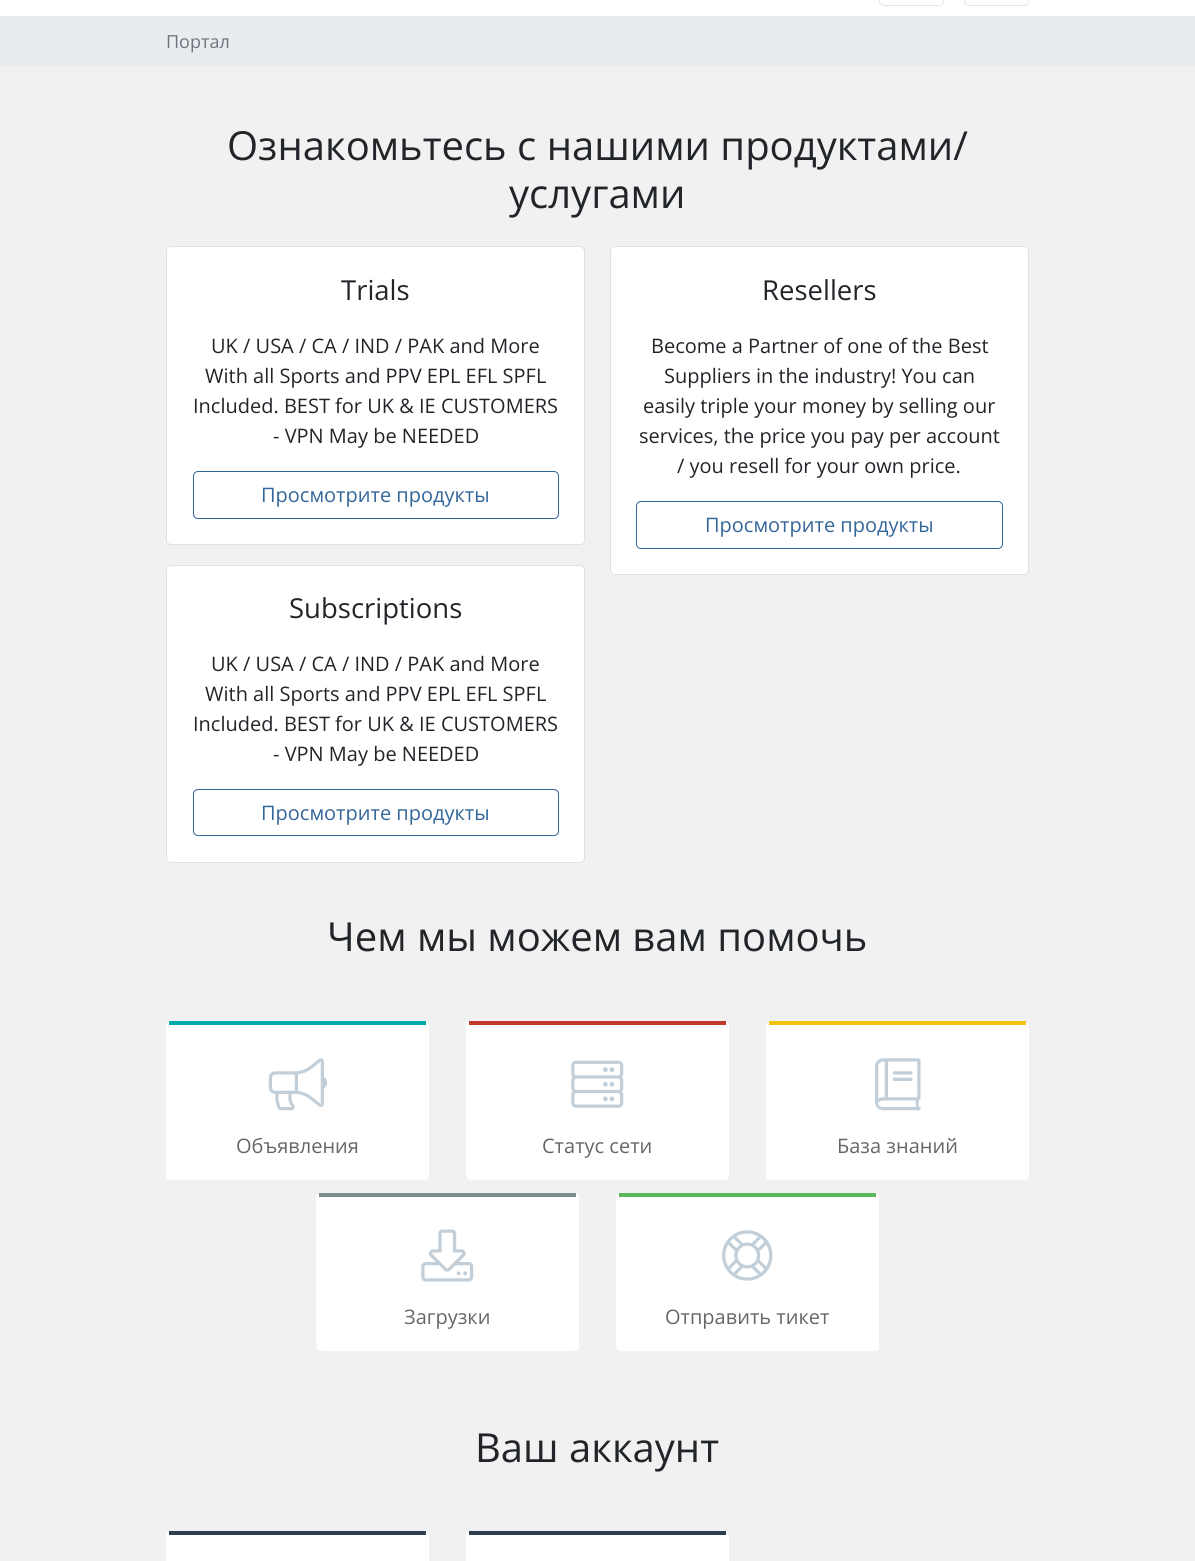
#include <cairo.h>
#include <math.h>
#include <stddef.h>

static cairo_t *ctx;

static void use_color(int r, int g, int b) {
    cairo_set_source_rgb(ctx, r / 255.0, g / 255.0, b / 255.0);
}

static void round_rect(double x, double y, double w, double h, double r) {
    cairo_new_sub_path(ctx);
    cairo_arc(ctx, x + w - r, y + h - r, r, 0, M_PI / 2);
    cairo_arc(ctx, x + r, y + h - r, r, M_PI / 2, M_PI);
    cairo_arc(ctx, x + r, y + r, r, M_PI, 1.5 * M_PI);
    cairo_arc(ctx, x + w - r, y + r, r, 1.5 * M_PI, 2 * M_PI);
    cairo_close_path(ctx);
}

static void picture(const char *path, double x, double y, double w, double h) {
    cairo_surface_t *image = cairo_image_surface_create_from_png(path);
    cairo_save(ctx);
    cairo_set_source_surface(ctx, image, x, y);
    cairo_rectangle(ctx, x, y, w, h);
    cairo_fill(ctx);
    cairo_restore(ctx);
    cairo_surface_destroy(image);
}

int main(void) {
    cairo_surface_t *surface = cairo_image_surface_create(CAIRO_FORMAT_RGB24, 1195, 1561);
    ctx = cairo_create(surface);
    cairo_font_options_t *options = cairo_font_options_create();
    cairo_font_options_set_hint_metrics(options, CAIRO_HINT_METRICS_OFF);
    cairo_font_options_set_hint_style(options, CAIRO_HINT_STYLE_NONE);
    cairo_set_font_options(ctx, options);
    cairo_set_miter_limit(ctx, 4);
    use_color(241, 241, 241);
    cairo_paint(ctx);
    use_color(255, 255, 255);
    cairo_rectangle(ctx, 0, 0, 1195, 16);
    cairo_fill(ctx);
    round_rect(879.5, -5.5, 64, 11, 4.5);
    use_color(229, 229, 229);
    cairo_set_line_width(ctx, 1);
    cairo_stroke(ctx);
    round_rect(964.5, -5.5, 64, 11, 4.5);
    cairo_stroke(ctx);
    use_color(233, 236, 239);
    cairo_rectangle(ctx, 0, 16, 1195, 50);
    cairo_fill(ctx);
    cairo_select_font_face(ctx, "Open Sans", CAIRO_FONT_SLANT_NORMAL, CAIRO_FONT_WEIGHT_NORMAL);
    cairo_set_font_size(ctx, 18);
    use_color(108, 117, 125);
    cairo_move_to(ctx, 166, 48);
    cairo_show_text(ctx, "Портал");
    cairo_set_font_size(ctx, 40);
    use_color(33, 37, 41);
    cairo_move_to(ctx, 227, 160);
    cairo_show_text(ctx, "Ознакомьтесь с нашими продуктами/");
    cairo_move_to(ctx, 509, 208);
    cairo_show_text(ctx, "услугами");
    use_color(255, 255, 255);
    round_rect(166, 246, 419, 299, 5);
    cairo_fill(ctx);
    round_rect(166.5, 246.5, 418, 298, 4.5);
    cairo_set_source_rgba(ctx, 0, 0, 0, 0.12);
    cairo_stroke(ctx);
    cairo_set_font_size(ctx, 27.5);
    use_color(33, 37, 41);
    cairo_move_to(ctx, 341, 300);
    cairo_show_text(ctx, "Trials");
    cairo_set_font_size(ctx, 20);
    cairo_move_to(ctx, 211, 353);
    cairo_show_text(ctx, "UK / USA / CA / IND / PAK and More");
    cairo_move_to(ctx, 205, 383);
    cairo_show_text(ctx, "With all Sports and PPV EPL EFL SPFL");
    cairo_move_to(ctx, 193, 413);
    cairo_show_text(ctx, "Included. BEST for UK & IE CUSTOMERS");
    cairo_move_to(ctx, 273, 443);
    cairo_show_text(ctx, "- VPN May be NEEDED");
    round_rect(193.5, 471.5, 365, 47, 4.5);
    use_color(51, 102, 153);
    cairo_stroke(ctx);
    cairo_move_to(ctx, 261, 502);
    cairo_show_text(ctx, "Просмотрите продукты");
    use_color(255, 255, 255);
    round_rect(610, 246, 419, 329, 5);
    cairo_fill(ctx);
    round_rect(610.5, 246.5, 418, 328, 4.5);
    cairo_set_source_rgba(ctx, 0, 0, 0, 0.12);
    cairo_stroke(ctx);
    cairo_set_font_size(ctx, 27.5);
    use_color(33, 37, 41);
    cairo_move_to(ctx, 762, 300);
    cairo_show_text(ctx, "Resellers");
    cairo_set_font_size(ctx, 20);
    cairo_move_to(ctx, 651, 353);
    cairo_show_text(ctx, "Become a Partner of one of the Best");
    cairo_move_to(ctx, 664, 383);
    cairo_show_text(ctx, "Suppliers in the industry! You can");
    cairo_move_to(ctx, 643, 413);
    cairo_show_text(ctx, "easily triple your money by selling our");
    cairo_move_to(ctx, 639, 443);
    cairo_show_text(ctx, "services, the price you pay per account");
    cairo_move_to(ctx, 677, 473);
    cairo_show_text(ctx, "/ you resell for your own price.");
    round_rect(636.5, 501.5, 366, 47, 4.5);
    use_color(51, 102, 153);
    cairo_stroke(ctx);
    cairo_move_to(ctx, 705, 532);
    cairo_show_text(ctx, "Просмотрите продукты");
    use_color(255, 255, 255);
    round_rect(166, 565, 419, 298, 5);
    cairo_fill(ctx);
    round_rect(166.5, 565.5, 418, 297, 4.5);
    cairo_set_source_rgba(ctx, 0, 0, 0, 0.12);
    cairo_stroke(ctx);
    cairo_set_font_size(ctx, 27.5);
    use_color(33, 37, 41);
    cairo_move_to(ctx, 289, 618);
    cairo_show_text(ctx, "Subscriptions");
    cairo_set_font_size(ctx, 20);
    cairo_move_to(ctx, 211, 671);
    cairo_show_text(ctx, "UK / USA / CA / IND / PAK and More");
    cairo_move_to(ctx, 205, 701);
    cairo_show_text(ctx, "With all Sports and PPV EPL EFL SPFL");
    cairo_move_to(ctx, 193, 731);
    cairo_show_text(ctx, "Included. BEST for UK & IE CUSTOMERS");
    cairo_move_to(ctx, 273, 761);
    cairo_show_text(ctx, "- VPN May be NEEDED");
    round_rect(193.5, 789.5, 365, 46, 4.5);
    use_color(51, 102, 153);
    cairo_stroke(ctx);
    cairo_move_to(ctx, 261, 820);
    cairo_show_text(ctx, "Просмотрите продукты");
    cairo_set_font_size(ctx, 40);
    use_color(33, 37, 41);
    cairo_move_to(ctx, 327, 951);
    cairo_show_text(ctx, "Чем мы можем вам помочь");
    use_color(255, 255, 255);
    round_rect(166, 1021, 263, 159, 5);
    cairo_fill(ctx);
    use_color(0, 171, 169);
    cairo_rectangle(ctx, 169, 1021, 257, 4);
    cairo_fill(ctx);
    picture("img1.png", 268, 1058, 60, 53);
    cairo_set_font_size(ctx, 20);
    use_color(102, 102, 102);
    cairo_move_to(ctx, 236, 1153);
    cairo_show_text(ctx, "Объявления");
    use_color(255, 255, 255);
    round_rect(466, 1021, 263, 159, 5);
    cairo_fill(ctx);
    use_color(192, 57, 43);
    cairo_rectangle(ctx, 469, 1021, 257, 4);
    cairo_fill(ctx);
    picture("img2.png", 571, 1060, 53, 48);
    use_color(102, 102, 102);
    cairo_move_to(ctx, 542, 1153);
    cairo_show_text(ctx, "Статус сети");
    use_color(255, 255, 255);
    round_rect(766, 1021, 263, 159, 5);
    cairo_fill(ctx);
    use_color(241, 196, 15);
    cairo_rectangle(ctx, 769, 1021, 257, 4);
    cairo_fill(ctx);
    picture("img3.png", 875, 1058, 46, 53);
    use_color(102, 102, 102);
    cairo_move_to(ctx, 837, 1153);
    cairo_show_text(ctx, "База знаний");
    use_color(255, 255, 255);
    round_rect(316, 1193, 263, 158, 5);
    cairo_fill(ctx);
    use_color(127, 140, 141);
    cairo_rectangle(ctx, 319, 1193, 257, 4);
    cairo_fill(ctx);
    picture("img4.png", 421, 1229, 53, 53);
    use_color(102, 102, 102);
    cairo_move_to(ctx, 404, 1324);
    cairo_show_text(ctx, "Загрузки");
    use_color(255, 255, 255);
    round_rect(616, 1193, 263, 158, 5);
    cairo_fill(ctx);
    use_color(92, 184, 92);
    cairo_rectangle(ctx, 619, 1193, 257, 4);
    cairo_fill(ctx);
    picture("img5.png", 722, 1230, 51, 51);
    use_color(102, 102, 102);
    cairo_move_to(ctx, 665, 1324);
    cairo_show_text(ctx, "Отправить тикет");
    cairo_set_font_size(ctx, 40);
    use_color(33, 37, 41);
    cairo_move_to(ctx, 475, 1462);
    cairo_show_text(ctx, "Ваш аккаунт");
    use_color(255, 255, 255);
    round_rect(166, 1531, 263, 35, 5);
    cairo_fill(ctx);
    use_color(44, 62, 80);
    cairo_rectangle(ctx, 169, 1531, 257, 4);
    cairo_fill(ctx);
    use_color(255, 255, 255);
    round_rect(466, 1531, 263, 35, 5);
    cairo_fill(ctx);
    use_color(44, 62, 80);
    cairo_rectangle(ctx, 469, 1531, 257, 4);
    cairo_fill(ctx);
    cairo_surface_write_to_png(surface, "result.png");
    cairo_font_options_destroy(options);
    cairo_destroy(ctx);
    cairo_surface_destroy(surface);
    return 0;
}
